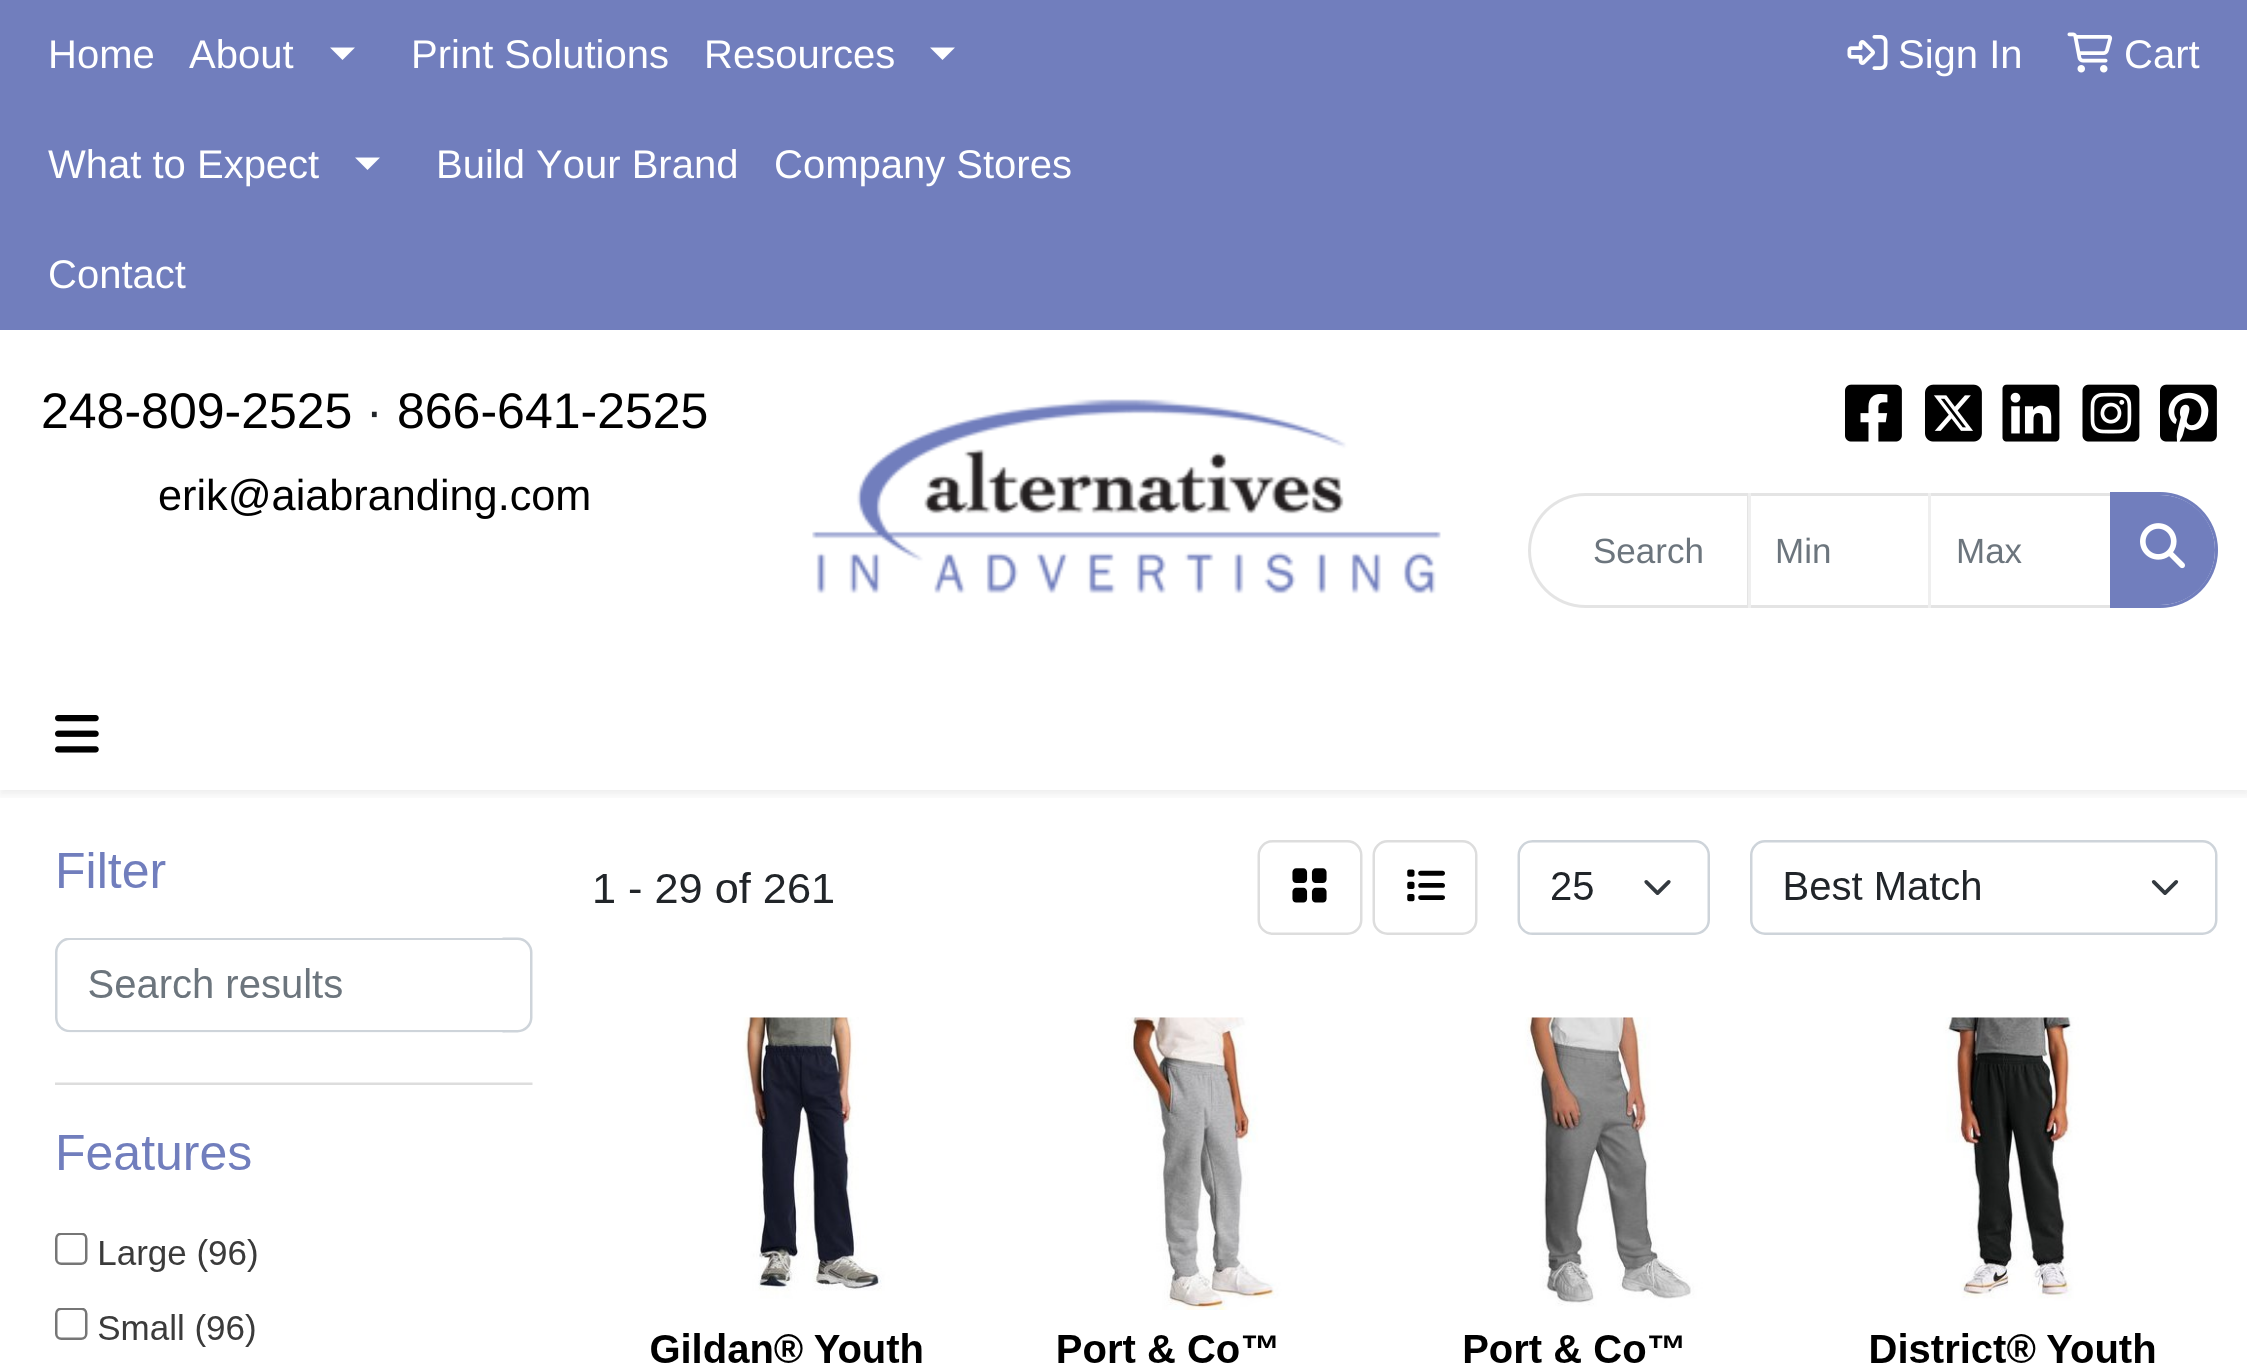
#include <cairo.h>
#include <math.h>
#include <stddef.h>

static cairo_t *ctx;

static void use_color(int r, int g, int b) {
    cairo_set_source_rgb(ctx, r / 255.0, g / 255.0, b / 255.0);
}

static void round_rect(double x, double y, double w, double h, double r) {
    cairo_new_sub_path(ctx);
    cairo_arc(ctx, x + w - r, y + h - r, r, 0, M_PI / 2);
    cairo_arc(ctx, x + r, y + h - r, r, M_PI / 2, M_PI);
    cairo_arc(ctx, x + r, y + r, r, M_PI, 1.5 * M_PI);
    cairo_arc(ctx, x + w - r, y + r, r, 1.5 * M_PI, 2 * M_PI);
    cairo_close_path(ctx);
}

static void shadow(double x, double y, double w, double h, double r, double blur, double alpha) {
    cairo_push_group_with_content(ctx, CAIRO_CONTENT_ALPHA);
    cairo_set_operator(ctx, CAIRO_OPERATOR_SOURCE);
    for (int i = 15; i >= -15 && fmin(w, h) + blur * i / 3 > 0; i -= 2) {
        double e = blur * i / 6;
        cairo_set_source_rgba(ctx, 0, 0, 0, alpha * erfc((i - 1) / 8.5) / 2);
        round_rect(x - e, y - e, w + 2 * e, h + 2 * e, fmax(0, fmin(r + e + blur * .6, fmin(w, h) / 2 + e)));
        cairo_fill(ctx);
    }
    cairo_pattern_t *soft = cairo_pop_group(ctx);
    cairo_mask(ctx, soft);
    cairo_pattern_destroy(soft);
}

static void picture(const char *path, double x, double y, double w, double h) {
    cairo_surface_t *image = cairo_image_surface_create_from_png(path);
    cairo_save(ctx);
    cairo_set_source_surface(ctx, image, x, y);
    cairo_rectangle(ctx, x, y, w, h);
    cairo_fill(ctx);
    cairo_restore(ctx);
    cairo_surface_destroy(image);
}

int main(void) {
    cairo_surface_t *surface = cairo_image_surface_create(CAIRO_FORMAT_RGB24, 2247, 1363);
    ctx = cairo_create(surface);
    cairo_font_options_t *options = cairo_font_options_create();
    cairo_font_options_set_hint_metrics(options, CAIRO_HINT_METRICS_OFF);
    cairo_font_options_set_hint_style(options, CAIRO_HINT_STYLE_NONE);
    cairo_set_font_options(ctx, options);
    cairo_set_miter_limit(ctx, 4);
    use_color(255, 255, 255);
    cairo_paint(ctx);
    use_color(113, 126, 189);
    cairo_rectangle(ctx, 0, 0, 2247, 330);
    cairo_fill(ctx);
    cairo_select_font_face(ctx, "Liberation Sans", CAIRO_FONT_SLANT_NORMAL, CAIRO_FONT_WEIGHT_NORMAL);
    cairo_set_font_size(ctx, 40);
    use_color(255, 255, 255);
    cairo_move_to(ctx, 48, 68);
    cairo_show_text(ctx, "Home");
    cairo_move_to(ctx, 189, 68);
    cairo_show_text(ctx, "About");
    cairo_new_path(ctx);
    cairo_move_to(ctx, 330, 47.5);
    cairo_line_to(ctx, 355, 47.5);
    cairo_line_to(ctx, 342.5, 60);
    cairo_close_path(ctx);
    cairo_fill(ctx);
    cairo_move_to(ctx, 411, 68);
    cairo_show_text(ctx, "Print Solutions");
    cairo_move_to(ctx, 704, 68);
    cairo_show_text(ctx, "Resources");
    cairo_new_path(ctx);
    cairo_move_to(ctx, 930, 47.5);
    cairo_line_to(ctx, 955, 47.5);
    cairo_line_to(ctx, 942.5, 60);
    cairo_close_path(ctx);
    cairo_fill(ctx);
    cairo_move_to(ctx, 48, 178);
    cairo_show_text(ctx, "What to Expect");
    cairo_new_path(ctx);
    cairo_move_to(ctx, 355, 157.5);
    cairo_line_to(ctx, 380, 157.5);
    cairo_line_to(ctx, 367.5, 170);
    cairo_close_path(ctx);
    cairo_fill(ctx);
    cairo_move_to(ctx, 436, 178);
    cairo_show_text(ctx, "Build Your Brand");
    cairo_move_to(ctx, 774, 178);
    cairo_show_text(ctx, "Company Stores");
    cairo_move_to(ctx, 48, 288);
    cairo_show_text(ctx, "Contact");
    picture("img1.png", 1847, 35, 41, 35);
    cairo_move_to(ctx, 1898, 68);
    cairo_show_text(ctx, "Sign In");
    picture("img2.png", 2067, 32, 46, 41);
    cairo_move_to(ctx, 2124, 68);
    cairo_show_text(ctx, "Cart");
    cairo_set_font_size(ctx, 50);
    use_color(0, 0, 0);
    cairo_move_to(ctx, 41, 428);
    cairo_show_text(ctx, "248-809-2525");
    use_color(33, 37, 41);
    cairo_move_to(ctx, 366, 428);
    cairo_show_text(ctx, "·");
    use_color(0, 0, 0);
    cairo_move_to(ctx, 397, 428);
    cairo_show_text(ctx, "866-641-2525");
    cairo_set_font_size(ctx, 43.25);
    cairo_move_to(ctx, 158, 510);
    cairo_show_text(ctx, "erik@aiabranding.com");
    picture("img3.png", 812, 399, 629, 195);
    picture("img4.png", 1845, 384, 57, 58);
    picture("img5.png", 1925, 384, 57, 58);
    picture("img6.png", 2002, 384, 58, 58);
    picture("img7.png", 2082, 384, 58, 58);
    picture("img8.png", 2160, 384, 57, 58);
    cairo_new_path(ctx);
    cairo_move_to(ctx, 1585.5, 494.5);
    cairo_line_to(ctx, 1748.5, 494.5);
    cairo_line_to(ctx, 1748.5, 606.5);
    cairo_line_to(ctx, 1585.5, 606.5);
    cairo_curve_to(ctx, 1554.5, 606.5, 1529.5, 581.5, 1529.5, 550.5);
    cairo_curve_to(ctx, 1529.5, 519.5, 1554.5, 494.5, 1585.5, 494.5);
    cairo_close_path(ctx);
    use_color(228, 228, 228);
    cairo_set_line_width(ctx, 3);
    cairo_stroke(ctx);
    cairo_set_font_size(ctx, 35);
    use_color(108, 117, 125);
    cairo_move_to(ctx, 1593, 563);
    cairo_show_text(ctx, "Search");
    use_color(228, 228, 228);
    cairo_rectangle(ctx, 1748, 493, 365, 3);
    cairo_fill(ctx);
    cairo_rectangle(ctx, 1748, 605, 365, 3);
    cairo_fill(ctx);
    use_color(239, 239, 239);
    cairo_rectangle(ctx, 1748, 493, 3, 115);
    cairo_fill(ctx);
    use_color(108, 117, 125);
    cairo_move_to(ctx, 1775, 563);
    cairo_show_text(ctx, "Min");
    use_color(239, 239, 239);
    cairo_rectangle(ctx, 1928, 493, 3, 115);
    cairo_fill(ctx);
    use_color(108, 117, 125);
    cairo_move_to(ctx, 1956, 563);
    cairo_show_text(ctx, "Max");
    use_color(113, 126, 189);
    cairo_new_path(ctx);
    cairo_move_to(ctx, 2110, 495);
    cairo_line_to(ctx, 2160, 495);
    cairo_curve_to(ctx, 2190.5, 495, 2215, 519.5, 2215, 550);
    cairo_curve_to(ctx, 2215, 580.5, 2190.5, 605, 2160, 605);
    cairo_line_to(ctx, 2110, 605);
    cairo_close_path(ctx);
    cairo_fill(ctx);
    cairo_set_fill_rule(ctx, CAIRO_FILL_RULE_EVEN_ODD);
    cairo_new_path(ctx);
    cairo_move_to(ctx, 2110, 492);
    cairo_line_to(ctx, 2160, 492);
    cairo_curve_to(ctx, 2192, 492, 2218, 518, 2218, 550);
    cairo_curve_to(ctx, 2218, 582, 2192, 608, 2160, 608);
    cairo_line_to(ctx, 2110, 608);
    cairo_close_path(ctx);
    cairo_move_to(ctx, 2110, 495);
    cairo_line_to(ctx, 2160, 495);
    cairo_curve_to(ctx, 2190, 495, 2215, 520, 2215, 550);
    cairo_curve_to(ctx, 2215, 580, 2190, 605, 2160, 605);
    cairo_line_to(ctx, 2110, 605);
    cairo_close_path(ctx);
    cairo_fill(ctx);
    picture("img9.png", 2140, 523, 45, 46);
    cairo_save(ctx);
    cairo_set_fill_rule(ctx, CAIRO_FILL_RULE_WINDING);
    cairo_rectangle(ctx, 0, 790, 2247, 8);
    cairo_clip(ctx);
    use_color(0, 0, 0);
    shadow(0, 685, 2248, 110, 0, 5, 0.07);
    cairo_restore(ctx);
    picture("img10.png", 55, 715, 44, 38);
    picture("img11.png", 55, 840, 2163, 523);
    cairo_surface_write_to_png(surface, "result.png");
    cairo_font_options_destroy(options);
    cairo_destroy(ctx);
    cairo_surface_destroy(surface);
    return 0;
}
